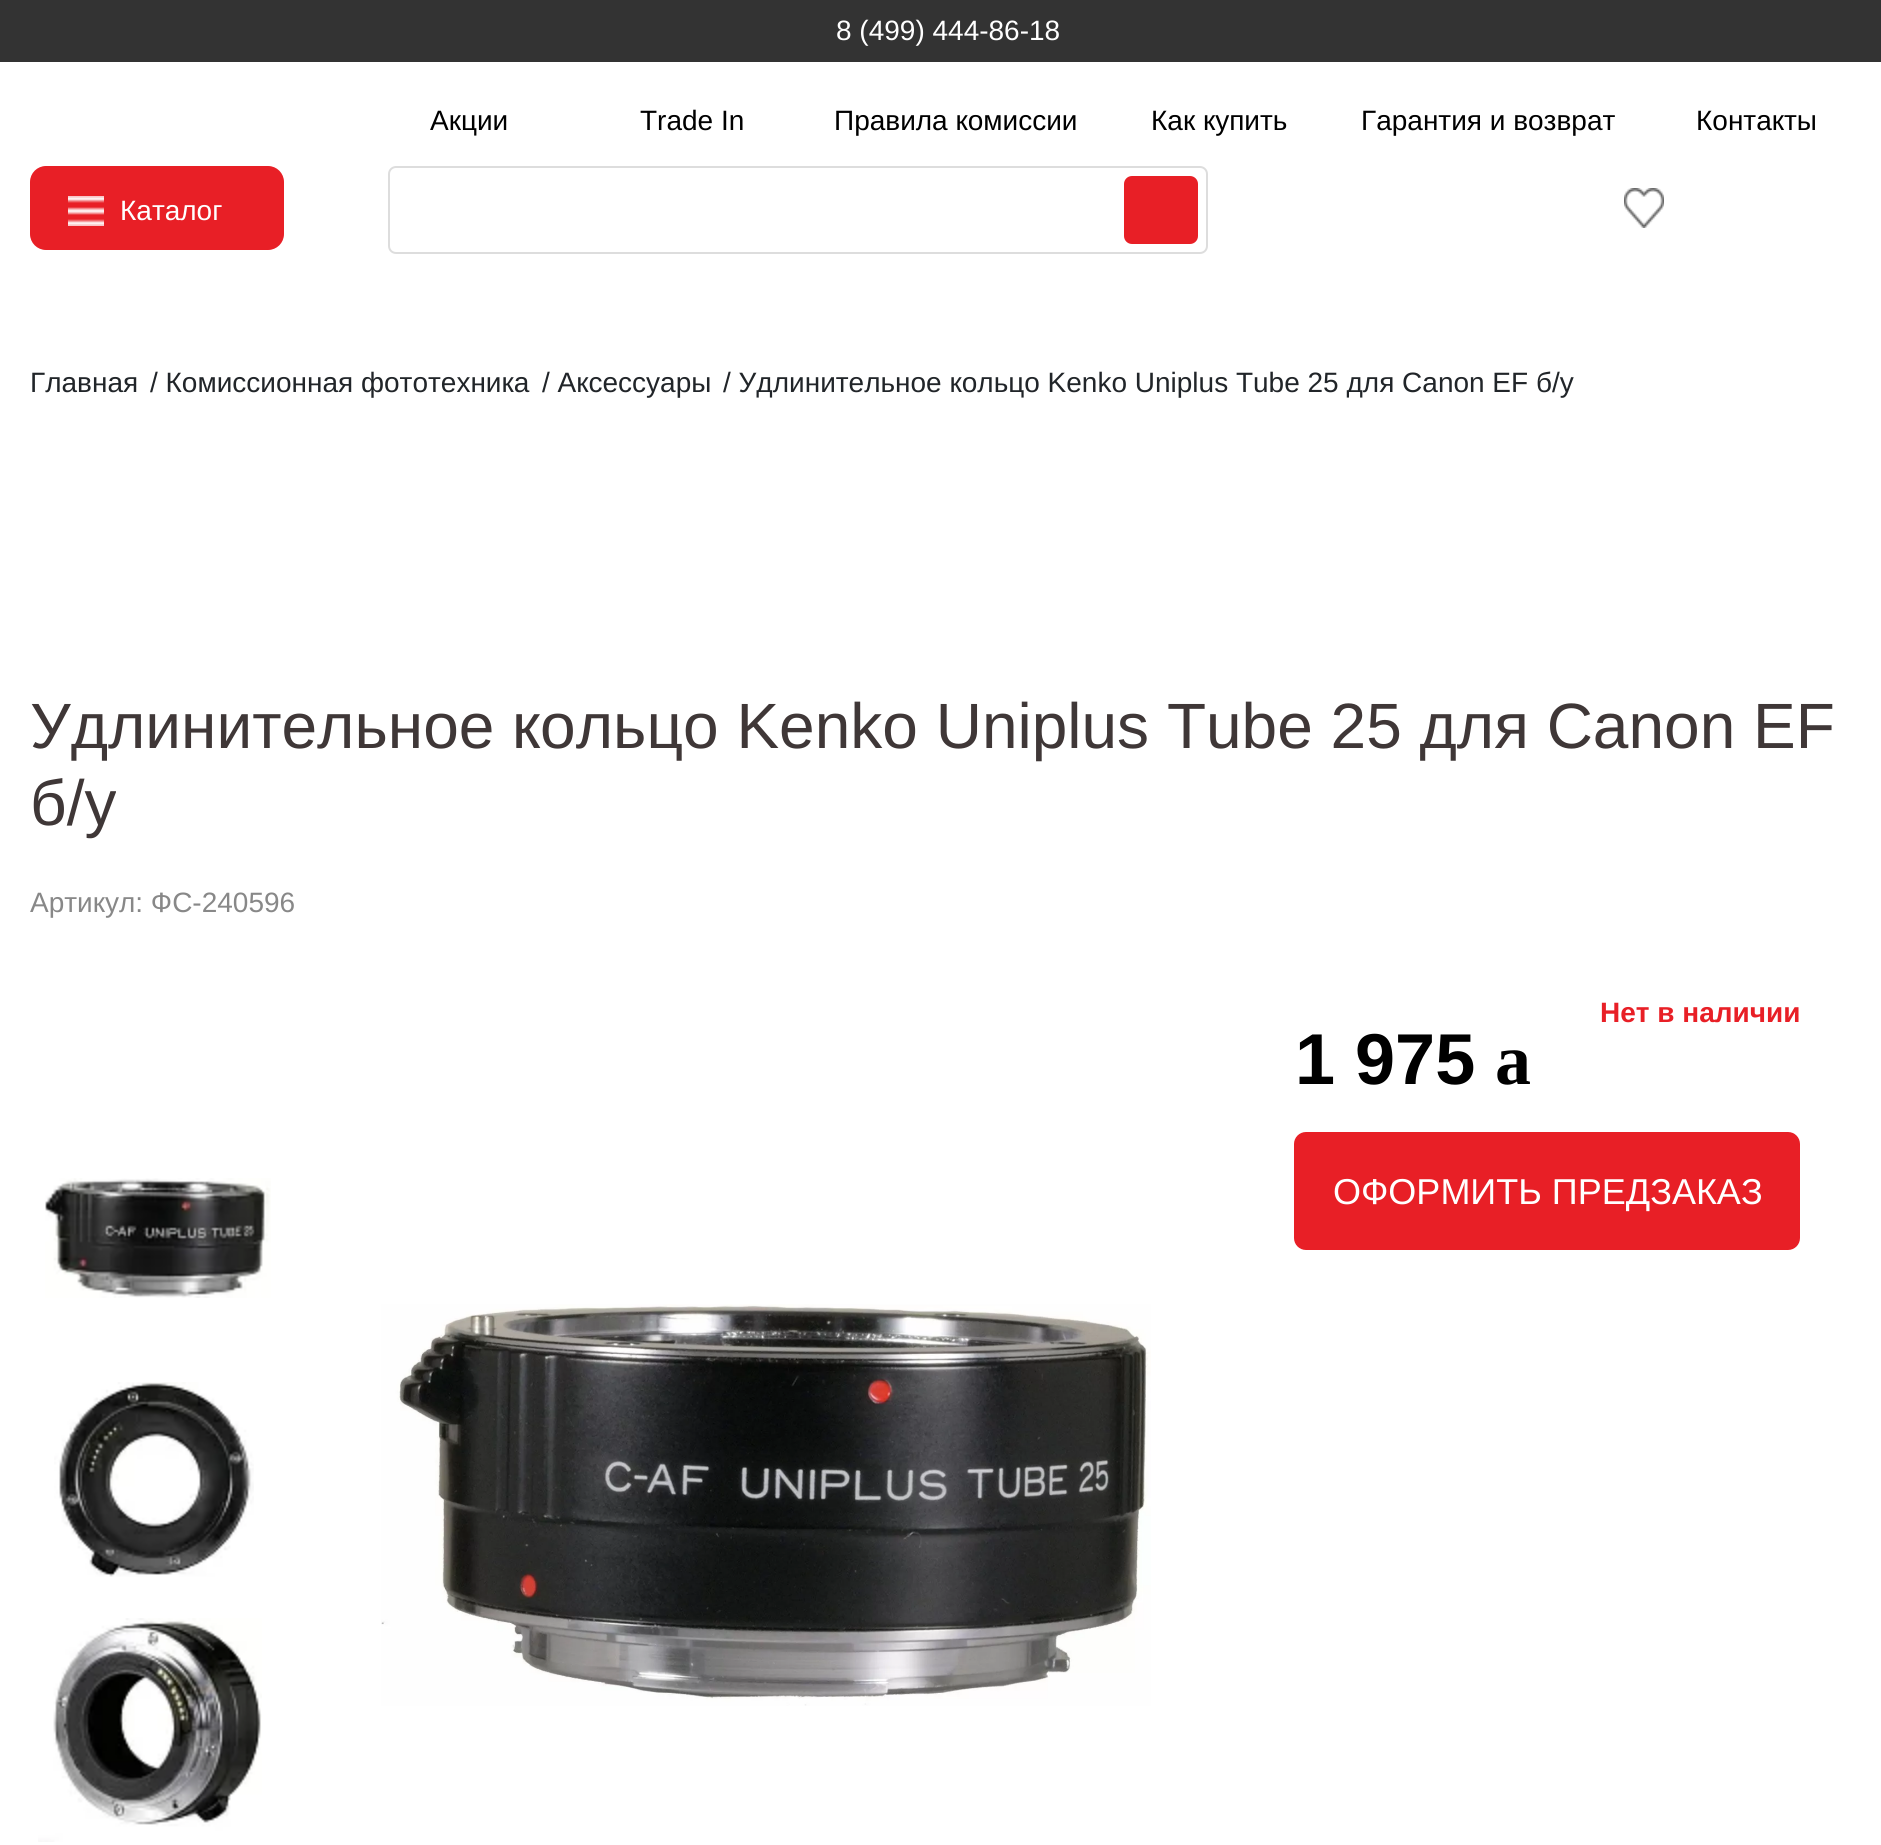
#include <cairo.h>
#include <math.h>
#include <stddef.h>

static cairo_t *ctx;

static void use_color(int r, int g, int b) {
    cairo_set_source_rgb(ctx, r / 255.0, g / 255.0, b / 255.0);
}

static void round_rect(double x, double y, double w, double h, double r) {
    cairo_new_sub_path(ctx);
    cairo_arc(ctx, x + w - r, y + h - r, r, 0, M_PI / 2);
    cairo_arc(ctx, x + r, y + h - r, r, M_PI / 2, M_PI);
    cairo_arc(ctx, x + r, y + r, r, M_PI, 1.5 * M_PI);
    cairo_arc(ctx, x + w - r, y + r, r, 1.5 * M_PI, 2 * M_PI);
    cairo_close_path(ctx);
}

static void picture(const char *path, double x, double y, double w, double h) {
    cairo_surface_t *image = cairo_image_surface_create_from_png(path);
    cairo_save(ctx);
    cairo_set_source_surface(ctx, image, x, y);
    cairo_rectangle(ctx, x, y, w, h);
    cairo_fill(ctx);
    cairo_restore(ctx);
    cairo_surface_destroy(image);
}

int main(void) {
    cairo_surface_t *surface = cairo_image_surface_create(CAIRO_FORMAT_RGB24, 1881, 1845);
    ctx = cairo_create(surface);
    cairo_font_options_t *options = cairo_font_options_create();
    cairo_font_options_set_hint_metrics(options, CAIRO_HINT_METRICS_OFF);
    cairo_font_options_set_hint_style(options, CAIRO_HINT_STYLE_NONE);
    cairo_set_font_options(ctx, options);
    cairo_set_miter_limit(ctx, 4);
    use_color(255, 255, 255);
    cairo_paint(ctx);
    use_color(51, 51, 51);
    cairo_rectangle(ctx, 0, 0, 1881, 62);
    cairo_fill(ctx);
    cairo_select_font_face(ctx, "Liberation Sans", CAIRO_FONT_SLANT_NORMAL, CAIRO_FONT_WEIGHT_NORMAL);
    cairo_set_font_size(ctx, 28);
    use_color(255, 255, 255);
    cairo_move_to(ctx, 836, 40);
    cairo_show_text(ctx, "8 (499) 444-86-18");
    use_color(0, 0, 0);
    cairo_move_to(ctx, 430, 130);
    cairo_show_text(ctx, "Акции");
    cairo_move_to(ctx, 640, 130);
    cairo_show_text(ctx, "Trade In");
    cairo_move_to(ctx, 834, 130);
    cairo_show_text(ctx, "Правила комиссии");
    cairo_move_to(ctx, 1151, 130);
    cairo_show_text(ctx, "Как купить");
    cairo_move_to(ctx, 1361, 130);
    cairo_show_text(ctx, "Гарантия и возврат");
    cairo_move_to(ctx, 1696, 130);
    cairo_show_text(ctx, "Контакты");
    use_color(232, 31, 38);
    round_rect(31, 167, 252, 82, 15);
    cairo_fill_preserve(ctx);
    cairo_stroke(ctx);
    picture("img1.png", 68, 196, 36, 30);
    use_color(255, 255, 255);
    cairo_move_to(ctx, 120, 220);
    cairo_show_text(ctx, "Каталог");
    round_rect(389, 167, 818, 86, 7);
    use_color(221, 221, 221);
    cairo_stroke(ctx);
    use_color(232, 31, 38);
    round_rect(1120, 172, 82, 76, 12);
    cairo_fill_preserve(ctx);
    use_color(255, 255, 255);
    cairo_set_line_width(ctx, 8);
    cairo_stroke(ctx);
    picture("img2.png", 1624, 188, 40, 40);
    use_color(33, 37, 41);
    cairo_move_to(ctx, 30, 392);
    cairo_show_text(ctx, "Главная");
    cairo_move_to(ctx, 150, 392);
    cairo_show_text(ctx, "/ Комиссионная фототехника");
    cairo_move_to(ctx, 542, 392);
    cairo_show_text(ctx, "/ Аксессуары");
    cairo_move_to(ctx, 723, 392);
    cairo_show_text(ctx, "/ Удлинительное кольцо Kenko Uniplus Tube 25 для Canon EF б/у");
    cairo_set_font_size(ctx, 64);
    use_color(63, 55, 55);
    cairo_move_to(ctx, 30, 748);
    cairo_show_text(ctx, "Удлинительное кольцо Kenko Uniplus Tube 25 для Canon EF");
    cairo_move_to(ctx, 30, 825);
    cairo_show_text(ctx, "б/у");
    cairo_set_font_size(ctx, 28);
    use_color(136, 136, 136);
    cairo_move_to(ctx, 30, 912);
    cairo_show_text(ctx, "Артикул: ФС-240596");
    cairo_select_font_face(ctx, "Liberation Sans", CAIRO_FONT_SLANT_NORMAL, CAIRO_FONT_WEIGHT_BOLD);
    use_color(232, 31, 38);
    cairo_move_to(ctx, 1600, 1022);
    cairo_show_text(ctx, "Нет в наличии");
    cairo_set_font_size(ctx, 72);
    use_color(0, 0, 0);
    cairo_move_to(ctx, 1295, 1084);
    cairo_show_text(ctx, "1 975");
    cairo_select_font_face(ctx, "Liberation Serif", CAIRO_FONT_SLANT_NORMAL, CAIRO_FONT_WEIGHT_BOLD);
    cairo_move_to(ctx, 1495, 1084);
    cairo_show_text(ctx, "a");
    use_color(232, 31, 38);
    round_rect(1297, 1135, 500, 112, 9);
    cairo_fill_preserve(ctx);
    cairo_set_line_width(ctx, 6);
    cairo_stroke(ctx);
    cairo_select_font_face(ctx, "Liberation Sans", CAIRO_FONT_SLANT_NORMAL, CAIRO_FONT_WEIGHT_NORMAL);
    cairo_set_font_size(ctx, 36);
    use_color(255, 255, 255);
    cairo_move_to(ctx, 1333, 1204);
    cairo_show_text(ctx, "ОФОРМИТЬ ПРЕДЗАКАЗ");
    picture("img3.png", 45, 1178, 226, 120);
    picture("img4.png", 54, 1382, 200, 195);
    picture("img5.png", 38, 1618, 224, 224);
    picture("img6.png", 381, 1304, 770, 402);
    cairo_surface_write_to_png(surface, "result.png");
    cairo_font_options_destroy(options);
    cairo_destroy(ctx);
    cairo_surface_destroy(surface);
    return 0;
}
